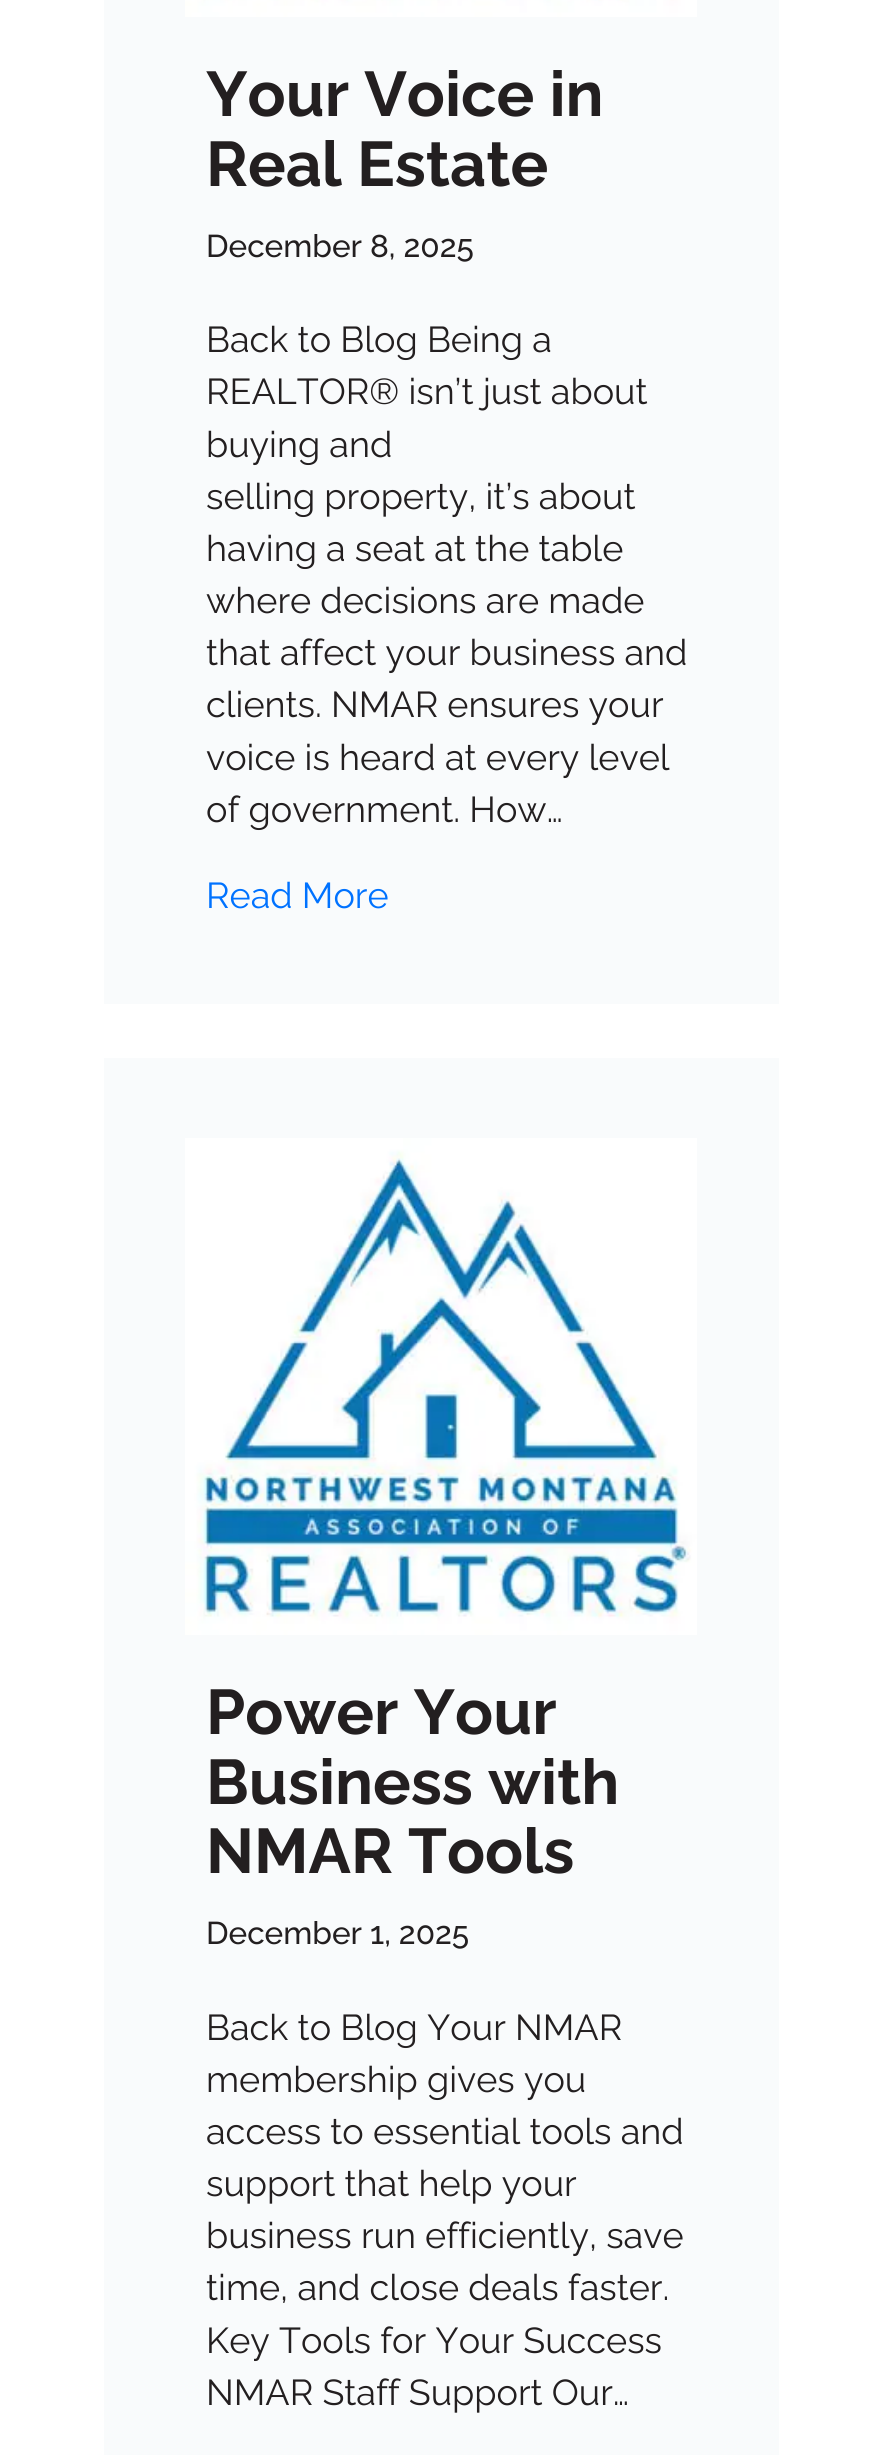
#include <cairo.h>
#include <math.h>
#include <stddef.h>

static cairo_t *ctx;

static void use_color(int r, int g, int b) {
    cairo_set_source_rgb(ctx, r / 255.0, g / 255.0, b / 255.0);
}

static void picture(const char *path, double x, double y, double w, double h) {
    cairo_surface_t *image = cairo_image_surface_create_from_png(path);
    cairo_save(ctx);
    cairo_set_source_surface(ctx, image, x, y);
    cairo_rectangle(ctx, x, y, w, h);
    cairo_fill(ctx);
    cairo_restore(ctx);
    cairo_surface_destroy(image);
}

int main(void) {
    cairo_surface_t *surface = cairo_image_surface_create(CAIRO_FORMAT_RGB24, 878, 2455);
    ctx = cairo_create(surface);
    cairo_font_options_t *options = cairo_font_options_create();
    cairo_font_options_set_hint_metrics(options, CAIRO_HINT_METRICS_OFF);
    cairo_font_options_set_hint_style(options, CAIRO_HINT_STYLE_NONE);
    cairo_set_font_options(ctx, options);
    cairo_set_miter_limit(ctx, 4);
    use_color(255, 255, 255);
    cairo_paint(ctx);
    use_color(249, 251, 252);
    cairo_rectangle(ctx, 104, 0, 675, 1004);
    cairo_fill(ctx);
    picture("img1.png", 185, 0, 512, 17);
    cairo_select_font_face(ctx, "Raleway", CAIRO_FONT_SLANT_NORMAL, CAIRO_FONT_WEIGHT_BOLD);
    cairo_set_font_size(ctx, 63);
    use_color(35, 31, 32);
    cairo_move_to(ctx, 206, 116);
    cairo_show_text(ctx, "Your Voice in");
    cairo_move_to(ctx, 206, 186);
    cairo_show_text(ctx, "Real Estate");
    cairo_select_font_face(ctx, "Raleway Medium", CAIRO_FONT_SLANT_NORMAL, CAIRO_FONT_WEIGHT_NORMAL);
    cairo_set_font_size(ctx, 31.5);
    cairo_move_to(ctx, 206, 257);
    cairo_show_text(ctx, "December 8, 2025");
    cairo_select_font_face(ctx, "Raleway", CAIRO_FONT_SLANT_NORMAL, CAIRO_FONT_WEIGHT_NORMAL);
    cairo_set_font_size(ctx, 36);
    cairo_move_to(ctx, 206, 352);
    cairo_show_text(ctx, "Back to Blog Being a");
    cairo_move_to(ctx, 206, 404);
    cairo_show_text(ctx, "REALTOR® isn’t just about");
    cairo_move_to(ctx, 206, 457);
    cairo_show_text(ctx, "buying and");
    cairo_move_to(ctx, 206, 509);
    cairo_show_text(ctx, "selling property, it’s about");
    cairo_move_to(ctx, 206, 561);
    cairo_show_text(ctx, "having a seat at the table");
    cairo_move_to(ctx, 206, 613);
    cairo_show_text(ctx, "where decisions are made");
    cairo_move_to(ctx, 206, 665);
    cairo_show_text(ctx, "that affect your business and");
    cairo_move_to(ctx, 206, 717);
    cairo_show_text(ctx, "clients. NMAR ensures your");
    cairo_move_to(ctx, 206, 770);
    cairo_show_text(ctx, "voice is heard at every level");
    cairo_move_to(ctx, 206, 822);
    cairo_show_text(ctx, "of government. How…");
    use_color(0, 114, 255);
    cairo_move_to(ctx, 206, 908);
    cairo_show_text(ctx, "Read More");
    use_color(249, 251, 252);
    cairo_rectangle(ctx, 104, 1058, 675, 1397);
    cairo_fill(ctx);
    picture("img2.png", 185, 1138, 512, 497);
    cairo_select_font_face(ctx, "Raleway", CAIRO_FONT_SLANT_NORMAL, CAIRO_FONT_WEIGHT_BOLD);
    cairo_set_font_size(ctx, 63);
    use_color(35, 31, 32);
    cairo_move_to(ctx, 206, 1734);
    cairo_show_text(ctx, "Power Your");
    cairo_move_to(ctx, 206, 1804);
    cairo_show_text(ctx, "Business with");
    cairo_move_to(ctx, 206, 1873);
    cairo_show_text(ctx, "NMAR Tools");
    cairo_select_font_face(ctx, "Raleway Medium", CAIRO_FONT_SLANT_NORMAL, CAIRO_FONT_WEIGHT_NORMAL);
    cairo_set_font_size(ctx, 31.5);
    cairo_move_to(ctx, 206, 1944);
    cairo_show_text(ctx, "December 1, 2025");
    cairo_select_font_face(ctx, "Raleway", CAIRO_FONT_SLANT_NORMAL, CAIRO_FONT_WEIGHT_NORMAL);
    cairo_set_font_size(ctx, 36);
    cairo_move_to(ctx, 206, 2040);
    cairo_show_text(ctx, "Back to Blog Your NMAR");
    cairo_move_to(ctx, 206, 2092);
    cairo_show_text(ctx, "membership gives you");
    cairo_move_to(ctx, 206, 2144);
    cairo_show_text(ctx, "access to essential tools and");
    cairo_move_to(ctx, 206, 2196);
    cairo_show_text(ctx, "support that help your");
    cairo_move_to(ctx, 206, 2248);
    cairo_show_text(ctx, "business run efficiently, save");
    cairo_move_to(ctx, 206, 2300);
    cairo_show_text(ctx, "time, and close deals faster.");
    cairo_move_to(ctx, 206, 2353);
    cairo_show_text(ctx, "Key Tools for Your Success");
    cairo_move_to(ctx, 206, 2405);
    cairo_show_text(ctx, "NMAR Staff Support Our…");
    cairo_surface_write_to_png(surface, "result.png");
    cairo_font_options_destroy(options);
    cairo_destroy(ctx);
    cairo_surface_destroy(surface);
    return 0;
}
